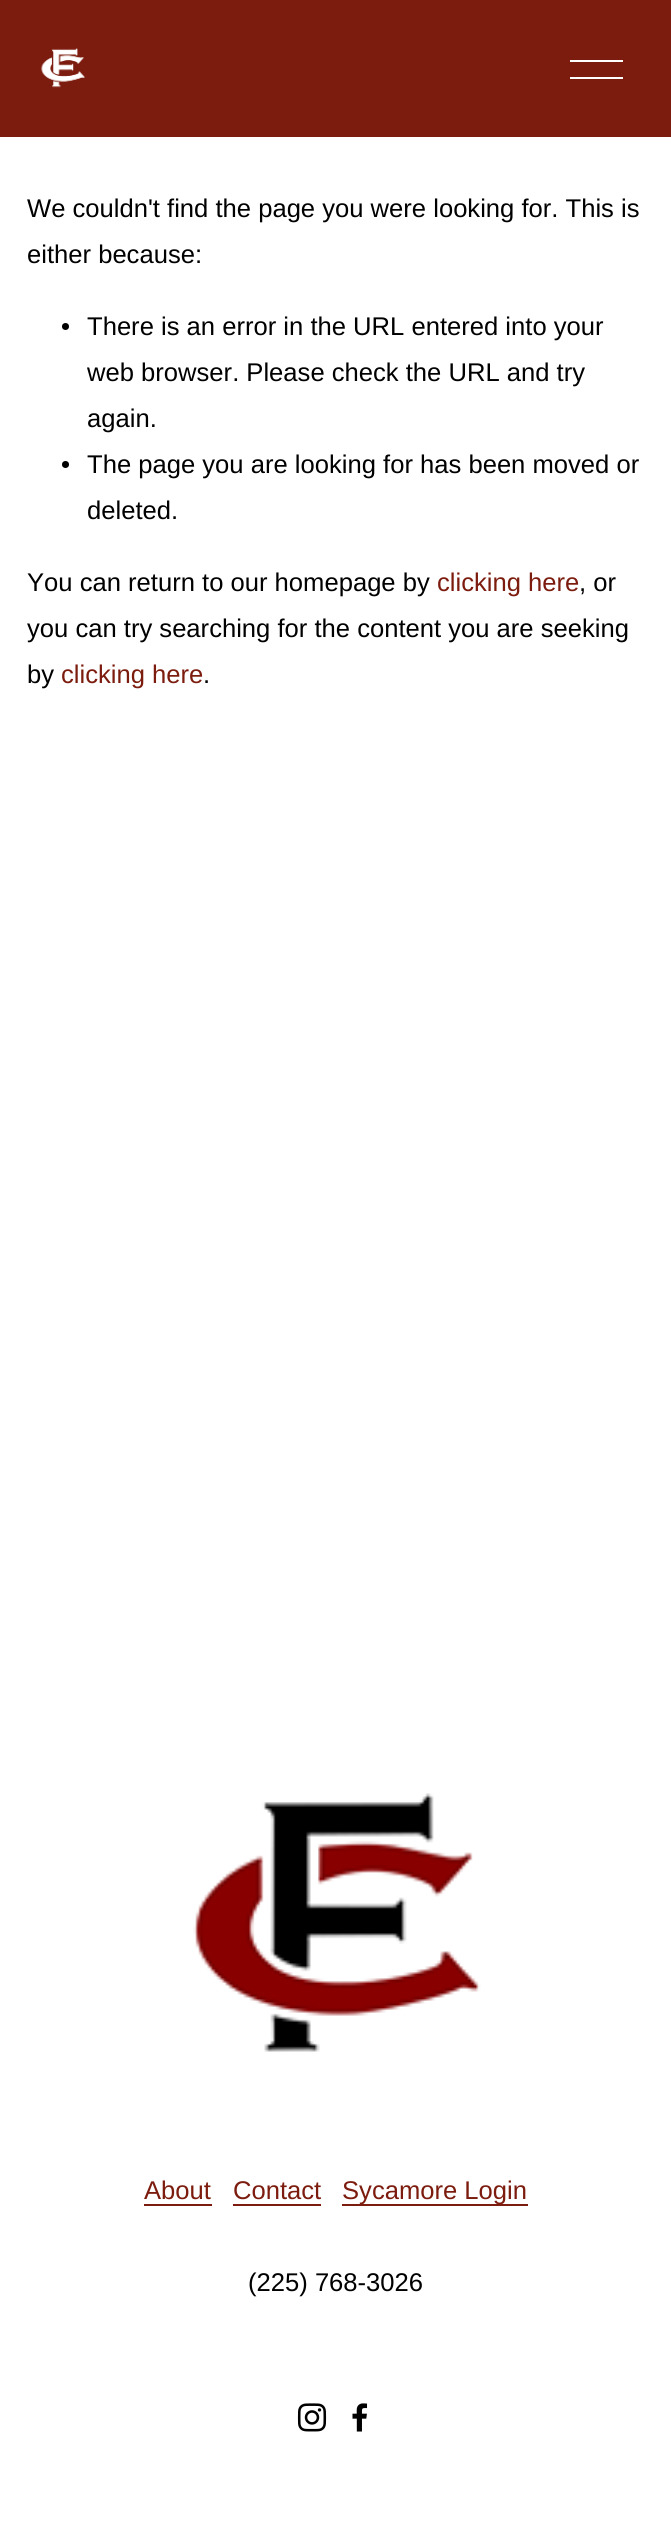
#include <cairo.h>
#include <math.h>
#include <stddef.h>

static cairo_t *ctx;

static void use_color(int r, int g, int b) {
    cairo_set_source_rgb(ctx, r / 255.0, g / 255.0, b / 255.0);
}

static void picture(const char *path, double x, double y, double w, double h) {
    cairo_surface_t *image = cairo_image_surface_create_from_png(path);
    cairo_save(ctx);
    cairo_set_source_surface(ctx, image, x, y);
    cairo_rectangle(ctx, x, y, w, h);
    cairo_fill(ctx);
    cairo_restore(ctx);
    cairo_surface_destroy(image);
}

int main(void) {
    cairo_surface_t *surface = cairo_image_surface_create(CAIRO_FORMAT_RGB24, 671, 2545);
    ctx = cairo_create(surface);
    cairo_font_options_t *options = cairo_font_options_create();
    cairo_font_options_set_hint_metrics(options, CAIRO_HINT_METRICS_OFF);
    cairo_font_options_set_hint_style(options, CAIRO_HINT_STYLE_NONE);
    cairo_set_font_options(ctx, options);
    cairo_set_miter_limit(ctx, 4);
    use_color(255, 255, 255);
    cairo_paint(ctx);
    use_color(124, 28, 14);
    cairo_rectangle(ctx, 0, 0, 671, 137);
    cairo_fill(ctx);
    picture("img1.png", 41, 48, 44, 40);
    use_color(255, 255, 255);
    cairo_rectangle(ctx, 570, 60, 53, 2);
    cairo_fill(ctx);
    cairo_rectangle(ctx, 570, 77, 53, 2);
    cairo_fill(ctx);
    cairo_select_font_face(ctx, "Liberation Sans", CAIRO_FONT_SLANT_NORMAL, CAIRO_FONT_WEIGHT_NORMAL);
    cairo_set_font_size(ctx, 25.6);
    use_color(0, 0, 0);
    cairo_move_to(ctx, 27, 217);
    cairo_show_text(ctx, "We couldn't find the page you were looking for. This is");
    cairo_move_to(ctx, 27, 263);
    cairo_show_text(ctx, "either because:");
    cairo_new_path(ctx);
    cairo_arc(ctx, 65.5, 326.5, 3.5, 0, 2 * M_PI);
    cairo_fill(ctx);
    cairo_move_to(ctx, 87, 335);
    cairo_show_text(ctx, "There is an error in the URL entered into your");
    cairo_move_to(ctx, 87, 381);
    cairo_show_text(ctx, "web browser. Please check the URL and try");
    cairo_move_to(ctx, 87, 427);
    cairo_show_text(ctx, "again.");
    cairo_new_path(ctx);
    cairo_arc(ctx, 65.5, 464.5, 3.5, 0, 2 * M_PI);
    cairo_fill(ctx);
    cairo_move_to(ctx, 87, 473);
    cairo_show_text(ctx, "The page you are looking for has been moved or");
    cairo_move_to(ctx, 87, 519);
    cairo_show_text(ctx, "deleted.");
    cairo_move_to(ctx, 27, 591);
    cairo_show_text(ctx, "You can return to our homepage by");
    use_color(124, 28, 14);
    cairo_move_to(ctx, 437, 591);
    cairo_show_text(ctx, "clicking here");
    use_color(0, 0, 0);
    cairo_move_to(ctx, 579, 591);
    cairo_show_text(ctx, ", or");
    cairo_move_to(ctx, 27, 637);
    cairo_show_text(ctx, "you can try searching for the content you are seeking");
    cairo_move_to(ctx, 27, 683);
    cairo_show_text(ctx, "by");
    use_color(124, 28, 14);
    cairo_move_to(ctx, 61, 683);
    cairo_show_text(ctx, "clicking here");
    use_color(0, 0, 0);
    cairo_move_to(ctx, 203, 683);
    cairo_show_text(ctx, ".");
    picture("img2.png", 193, 1793, 288, 259);
    use_color(124, 28, 14);
    cairo_move_to(ctx, 144, 2199);
    cairo_show_text(ctx, "About");
    cairo_rectangle(ctx, 144, 2204, 68, 2);
    cairo_fill(ctx);
    cairo_move_to(ctx, 233, 2199);
    cairo_show_text(ctx, "Contact");
    cairo_rectangle(ctx, 233, 2204, 88, 2);
    cairo_fill(ctx);
    cairo_rectangle(ctx, 342, 2204, 186, 2);
    cairo_fill(ctx);
    cairo_move_to(ctx, 342, 2199);
    cairo_show_text(ctx, "Sycamore Login");
    use_color(0, 0, 0);
    cairo_move_to(ctx, 248, 2291);
    cairo_show_text(ctx, "(225) 768-3026");
    picture("img3.png", 297, 2403, 30, 29);
    picture("img4.png", 352, 2403, 16, 29);
    cairo_surface_write_to_png(surface, "result.png");
    cairo_font_options_destroy(options);
    cairo_destroy(ctx);
    cairo_surface_destroy(surface);
    return 0;
}
